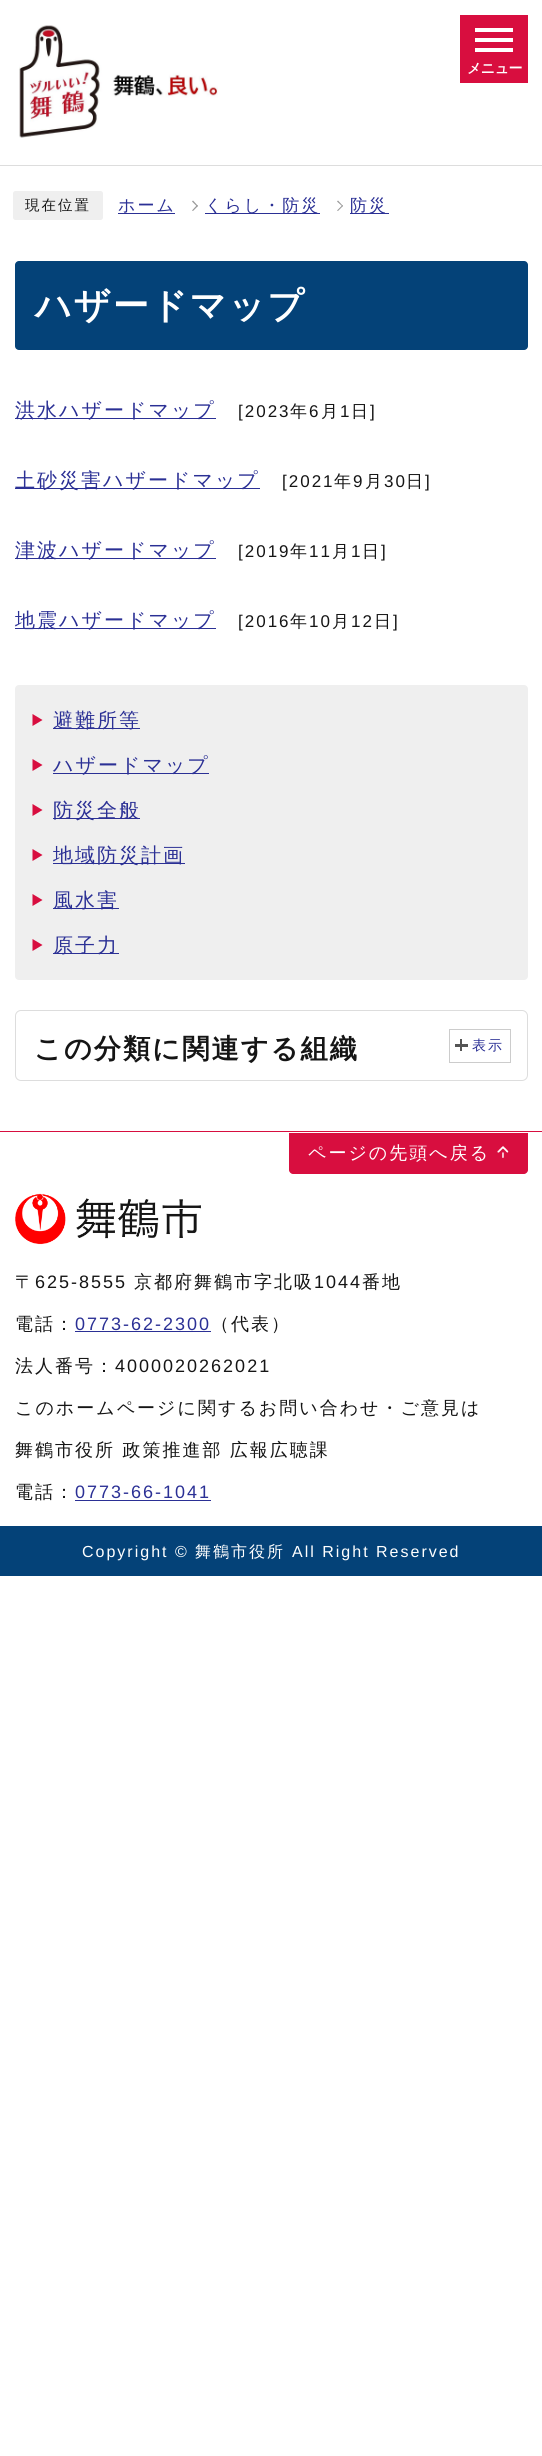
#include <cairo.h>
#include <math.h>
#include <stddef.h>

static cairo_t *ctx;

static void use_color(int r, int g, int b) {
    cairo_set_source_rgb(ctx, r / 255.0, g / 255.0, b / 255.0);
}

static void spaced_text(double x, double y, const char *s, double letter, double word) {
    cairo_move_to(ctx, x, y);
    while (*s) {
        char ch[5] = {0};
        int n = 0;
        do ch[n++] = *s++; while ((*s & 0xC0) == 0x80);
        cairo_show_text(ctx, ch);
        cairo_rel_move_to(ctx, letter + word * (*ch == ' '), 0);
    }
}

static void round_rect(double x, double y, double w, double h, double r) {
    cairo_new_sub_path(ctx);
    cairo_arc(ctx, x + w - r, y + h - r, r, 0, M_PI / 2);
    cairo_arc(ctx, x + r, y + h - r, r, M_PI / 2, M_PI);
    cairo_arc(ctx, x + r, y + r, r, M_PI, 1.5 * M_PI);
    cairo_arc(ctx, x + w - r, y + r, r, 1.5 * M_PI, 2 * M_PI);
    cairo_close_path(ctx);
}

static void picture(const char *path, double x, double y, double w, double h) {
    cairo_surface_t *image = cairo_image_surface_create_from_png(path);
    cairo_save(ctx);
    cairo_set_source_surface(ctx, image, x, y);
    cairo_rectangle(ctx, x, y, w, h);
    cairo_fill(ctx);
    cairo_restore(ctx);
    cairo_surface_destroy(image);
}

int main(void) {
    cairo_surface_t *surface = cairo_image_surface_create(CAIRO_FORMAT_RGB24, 542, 2456);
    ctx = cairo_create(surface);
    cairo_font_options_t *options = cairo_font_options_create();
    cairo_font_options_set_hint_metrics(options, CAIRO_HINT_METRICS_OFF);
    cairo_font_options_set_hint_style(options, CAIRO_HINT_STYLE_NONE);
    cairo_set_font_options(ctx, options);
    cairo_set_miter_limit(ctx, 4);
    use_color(255, 255, 255);
    cairo_paint(ctx);
    use_color(221, 221, 221);
    cairo_rectangle(ctx, 0, 165, 542, 1);
    cairo_fill(ctx);
    picture("img1.png", 19, 25, 199, 113);
    use_color(216, 14, 63);
    cairo_rectangle(ctx, 460, 15, 68, 68);
    cairo_fill(ctx);
    use_color(255, 255, 255);
    cairo_rectangle(ctx, 475, 28, 38, 4);
    cairo_fill(ctx);
    cairo_rectangle(ctx, 475, 38, 38, 4);
    cairo_fill(ctx);
    cairo_rectangle(ctx, 475, 48, 38, 4);
    cairo_fill(ctx);
    cairo_select_font_face(ctx, "WenQuanYi Zen Hei", CAIRO_FONT_SLANT_NORMAL, CAIRO_FONT_WEIGHT_BOLD);
    cairo_set_font_size(ctx, 14);
    spaced_text(467, 73, "メニュー", -0.5, 0);
    use_color(239, 239, 239);
    round_rect(13, 191, 90, 29, 2.5);
    cairo_fill(ctx);
    cairo_select_font_face(ctx, "WenQuanYi Zen Hei Medium", CAIRO_FONT_SLANT_NORMAL, CAIRO_FONT_WEIGHT_NORMAL);
    cairo_set_font_size(ctx, 14.5);
    use_color(21, 21, 21);
    spaced_text(25, 210, "現在位置", 2, 0);
    cairo_set_font_size(ctx, 17);
    use_color(43, 48, 149);
    spaced_text(118, 211, "ホーム", 2, 0);
    cairo_rectangle(ctx, 118, 213, 57, 1);
    cairo_fill(ctx);
    use_color(153, 153, 153);
    cairo_new_path(ctx);
    cairo_move_to(ctx, 192, 201.5);
    cairo_line_to(ctx, 193, 200.5);
    cairo_line_to(ctx, 198, 206);
    cairo_line_to(ctx, 197, 206.5);
    cairo_close_path(ctx);
    cairo_fill(ctx);
    cairo_new_path(ctx);
    cairo_move_to(ctx, 192, 210.5);
    cairo_line_to(ctx, 197, 205);
    cairo_line_to(ctx, 198, 206);
    cairo_line_to(ctx, 193, 211);
    cairo_close_path(ctx);
    cairo_fill(ctx);
    use_color(43, 48, 149);
    cairo_rectangle(ctx, 205, 213, 115, 1);
    cairo_fill(ctx);
    spaced_text(205, 211, "くらし・防災", 2, 0);
    use_color(153, 153, 153);
    cairo_new_path(ctx);
    cairo_move_to(ctx, 337, 201.5);
    cairo_line_to(ctx, 338, 200.5);
    cairo_line_to(ctx, 343, 206);
    cairo_line_to(ctx, 342.5, 206.5);
    cairo_close_path(ctx);
    cairo_fill(ctx);
    cairo_new_path(ctx);
    cairo_move_to(ctx, 337, 210.5);
    cairo_line_to(ctx, 342.5, 205);
    cairo_line_to(ctx, 343, 206);
    cairo_line_to(ctx, 338, 211);
    cairo_close_path(ctx);
    cairo_fill(ctx);
    use_color(43, 48, 149);
    cairo_rectangle(ctx, 350, 213, 39, 1);
    cairo_fill(ctx);
    spaced_text(350, 211, "防災", 2, 0);
    use_color(4, 66, 120);
    round_rect(15, 261, 513, 89, 4);
    cairo_fill(ctx);
    cairo_select_font_face(ctx, "WenQuanYi Zen Hei", CAIRO_FONT_SLANT_NORMAL, CAIRO_FONT_WEIGHT_BOLD);
    cairo_set_font_size(ctx, 36);
    use_color(255, 255, 255);
    spaced_text(35, 318, "ハザードマップ", 2, 0);
    use_color(43, 48, 149);
    cairo_rectangle(ctx, 15, 418, 201, 1);
    cairo_fill(ctx);
    cairo_select_font_face(ctx, "WenQuanYi Zen Hei Medium", CAIRO_FONT_SLANT_NORMAL, CAIRO_FONT_WEIGHT_NORMAL);
    cairo_set_font_size(ctx, 20);
    spaced_text(15, 417, "洪水ハザードマップ", 2, 0);
    cairo_select_font_face(ctx, "Liberation Sans", CAIRO_FONT_SLANT_NORMAL, CAIRO_FONT_WEIGHT_NORMAL);
    cairo_set_font_size(ctx, 17);
    use_color(21, 21, 21);
    spaced_text(238, 417, "[2023", 2, 0);
    cairo_select_font_face(ctx, "WenQuanYi Zen Hei Medium", CAIRO_FONT_SLANT_NORMAL, CAIRO_FONT_WEIGHT_NORMAL);
    spaced_text(290, 417, "年", 2, 0);
    cairo_select_font_face(ctx, "Liberation Sans", CAIRO_FONT_SLANT_NORMAL, CAIRO_FONT_WEIGHT_NORMAL);
    spaced_text(309, 417, "6", 2, 0);
    cairo_select_font_face(ctx, "WenQuanYi Zen Hei Medium", CAIRO_FONT_SLANT_NORMAL, CAIRO_FONT_WEIGHT_NORMAL);
    spaced_text(321, 417, "月", 2, 0);
    cairo_select_font_face(ctx, "Liberation Sans", CAIRO_FONT_SLANT_NORMAL, CAIRO_FONT_WEIGHT_NORMAL);
    spaced_text(340, 417, "1", 2, 0);
    cairo_select_font_face(ctx, "WenQuanYi Zen Hei Medium", CAIRO_FONT_SLANT_NORMAL, CAIRO_FONT_WEIGHT_NORMAL);
    spaced_text(351, 417, "日", 2, 0);
    cairo_select_font_face(ctx, "Liberation Sans", CAIRO_FONT_SLANT_NORMAL, CAIRO_FONT_WEIGHT_NORMAL);
    spaced_text(370, 417, "]", 2, 0);
    use_color(43, 48, 149);
    cairo_rectangle(ctx, 15, 488, 245, 1);
    cairo_fill(ctx);
    cairo_select_font_face(ctx, "WenQuanYi Zen Hei Medium", CAIRO_FONT_SLANT_NORMAL, CAIRO_FONT_WEIGHT_NORMAL);
    cairo_set_font_size(ctx, 20);
    spaced_text(15, 487, "土砂災害ハザードマップ", 2, 0);
    cairo_select_font_face(ctx, "Liberation Sans", CAIRO_FONT_SLANT_NORMAL, CAIRO_FONT_WEIGHT_NORMAL);
    cairo_set_font_size(ctx, 17);
    use_color(21, 21, 21);
    spaced_text(282, 487, "[2021", 2, 0);
    cairo_select_font_face(ctx, "WenQuanYi Zen Hei Medium", CAIRO_FONT_SLANT_NORMAL, CAIRO_FONT_WEIGHT_NORMAL);
    spaced_text(334, 487, "年", 2, 0);
    cairo_select_font_face(ctx, "Liberation Sans", CAIRO_FONT_SLANT_NORMAL, CAIRO_FONT_WEIGHT_NORMAL);
    spaced_text(353, 487, "9", 2, 0);
    cairo_select_font_face(ctx, "WenQuanYi Zen Hei Medium", CAIRO_FONT_SLANT_NORMAL, CAIRO_FONT_WEIGHT_NORMAL);
    spaced_text(365, 487, "月", 2, 0);
    cairo_select_font_face(ctx, "Liberation Sans", CAIRO_FONT_SLANT_NORMAL, CAIRO_FONT_WEIGHT_NORMAL);
    spaced_text(384, 487, "30", 2, 0);
    cairo_select_font_face(ctx, "WenQuanYi Zen Hei Medium", CAIRO_FONT_SLANT_NORMAL, CAIRO_FONT_WEIGHT_NORMAL);
    spaced_text(406, 487, "日", 2, 0);
    cairo_select_font_face(ctx, "Liberation Sans", CAIRO_FONT_SLANT_NORMAL, CAIRO_FONT_WEIGHT_NORMAL);
    spaced_text(425, 487, "]", 2, 0);
    use_color(43, 48, 149);
    cairo_rectangle(ctx, 15, 558, 201, 1);
    cairo_fill(ctx);
    cairo_select_font_face(ctx, "WenQuanYi Zen Hei Medium", CAIRO_FONT_SLANT_NORMAL, CAIRO_FONT_WEIGHT_NORMAL);
    cairo_set_font_size(ctx, 20);
    spaced_text(15, 557, "津波ハザードマップ", 2, 0);
    cairo_select_font_face(ctx, "Liberation Sans", CAIRO_FONT_SLANT_NORMAL, CAIRO_FONT_WEIGHT_NORMAL);
    cairo_set_font_size(ctx, 17);
    use_color(21, 21, 21);
    spaced_text(238, 557, "[2019", 2, 0);
    cairo_select_font_face(ctx, "WenQuanYi Zen Hei Medium", CAIRO_FONT_SLANT_NORMAL, CAIRO_FONT_WEIGHT_NORMAL);
    spaced_text(290, 557, "年", 2, 0);
    cairo_select_font_face(ctx, "Liberation Sans", CAIRO_FONT_SLANT_NORMAL, CAIRO_FONT_WEIGHT_NORMAL);
    spaced_text(309, 557, "11", 2, 0);
    cairo_select_font_face(ctx, "WenQuanYi Zen Hei Medium", CAIRO_FONT_SLANT_NORMAL, CAIRO_FONT_WEIGHT_NORMAL);
    spaced_text(332, 557, "月", 2, 0);
    cairo_select_font_face(ctx, "Liberation Sans", CAIRO_FONT_SLANT_NORMAL, CAIRO_FONT_WEIGHT_NORMAL);
    spaced_text(351, 557, "1", 2, 0);
    cairo_select_font_face(ctx, "WenQuanYi Zen Hei Medium", CAIRO_FONT_SLANT_NORMAL, CAIRO_FONT_WEIGHT_NORMAL);
    spaced_text(362, 557, "日", 2, 0);
    cairo_select_font_face(ctx, "Liberation Sans", CAIRO_FONT_SLANT_NORMAL, CAIRO_FONT_WEIGHT_NORMAL);
    spaced_text(381, 557, "]", 2, 0);
    use_color(43, 48, 149);
    cairo_rectangle(ctx, 15, 628, 201, 1);
    cairo_fill(ctx);
    cairo_select_font_face(ctx, "WenQuanYi Zen Hei Medium", CAIRO_FONT_SLANT_NORMAL, CAIRO_FONT_WEIGHT_NORMAL);
    cairo_set_font_size(ctx, 20);
    spaced_text(15, 627, "地震ハザードマップ", 2, 0);
    cairo_select_font_face(ctx, "Liberation Sans", CAIRO_FONT_SLANT_NORMAL, CAIRO_FONT_WEIGHT_NORMAL);
    cairo_set_font_size(ctx, 17);
    use_color(21, 21, 21);
    spaced_text(238, 627, "[2016", 2, 0);
    cairo_select_font_face(ctx, "WenQuanYi Zen Hei Medium", CAIRO_FONT_SLANT_NORMAL, CAIRO_FONT_WEIGHT_NORMAL);
    spaced_text(290, 627, "年", 2, 0);
    cairo_select_font_face(ctx, "Liberation Sans", CAIRO_FONT_SLANT_NORMAL, CAIRO_FONT_WEIGHT_NORMAL);
    spaced_text(309, 627, "10", 2, 0);
    cairo_select_font_face(ctx, "WenQuanYi Zen Hei Medium", CAIRO_FONT_SLANT_NORMAL, CAIRO_FONT_WEIGHT_NORMAL);
    spaced_text(332, 627, "月", 2, 0);
    cairo_select_font_face(ctx, "Liberation Sans", CAIRO_FONT_SLANT_NORMAL, CAIRO_FONT_WEIGHT_NORMAL);
    spaced_text(351, 627, "12", 2, 0);
    cairo_select_font_face(ctx, "WenQuanYi Zen Hei Medium", CAIRO_FONT_SLANT_NORMAL, CAIRO_FONT_WEIGHT_NORMAL);
    spaced_text(374, 627, "日", 2, 0);
    cairo_select_font_face(ctx, "Liberation Sans", CAIRO_FONT_SLANT_NORMAL, CAIRO_FONT_WEIGHT_NORMAL);
    spaced_text(393, 627, "]", 2, 0);
    use_color(239, 239, 239);
    round_rect(15, 685, 513, 295, 4);
    cairo_fill(ctx);
    use_color(216, 14, 63);
    cairo_new_path(ctx);
    cairo_move_to(ctx, 32.5, 726);
    cairo_line_to(ctx, 32.5, 714);
    cairo_line_to(ctx, 42.5, 720);
    cairo_close_path(ctx);
    cairo_fill(ctx);
    use_color(43, 48, 149);
    cairo_rectangle(ctx, 53, 728, 87, 1);
    cairo_fill(ctx);
    cairo_select_font_face(ctx, "WenQuanYi Zen Hei Medium", CAIRO_FONT_SLANT_NORMAL, CAIRO_FONT_WEIGHT_NORMAL);
    cairo_set_font_size(ctx, 20);
    spaced_text(53, 727, "避難所等", 2, 0);
    use_color(216, 14, 63);
    cairo_new_path(ctx);
    cairo_move_to(ctx, 32.5, 771);
    cairo_line_to(ctx, 32.5, 759);
    cairo_line_to(ctx, 42.5, 765);
    cairo_close_path(ctx);
    cairo_fill(ctx);
    use_color(43, 48, 149);
    cairo_rectangle(ctx, 53, 773, 156, 1);
    cairo_fill(ctx);
    spaced_text(53, 772, "ハザードマップ", 2, 0);
    use_color(216, 14, 63);
    cairo_new_path(ctx);
    cairo_move_to(ctx, 32.5, 816);
    cairo_line_to(ctx, 32.5, 804);
    cairo_line_to(ctx, 42.5, 810);
    cairo_close_path(ctx);
    cairo_fill(ctx);
    use_color(43, 48, 149);
    cairo_rectangle(ctx, 53, 818, 87, 1);
    cairo_fill(ctx);
    spaced_text(53, 817, "防災全般", 2, 0);
    use_color(216, 14, 63);
    cairo_new_path(ctx);
    cairo_move_to(ctx, 32.5, 861);
    cairo_line_to(ctx, 32.5, 849);
    cairo_line_to(ctx, 42.5, 855);
    cairo_close_path(ctx);
    cairo_fill(ctx);
    use_color(43, 48, 149);
    cairo_rectangle(ctx, 53, 863, 132, 1);
    cairo_fill(ctx);
    spaced_text(53, 862, "地域防災計画", 2, 0);
    use_color(216, 14, 63);
    cairo_new_path(ctx);
    cairo_move_to(ctx, 32.5, 906);
    cairo_line_to(ctx, 32.5, 894);
    cairo_line_to(ctx, 42.5, 900);
    cairo_close_path(ctx);
    cairo_fill(ctx);
    use_color(43, 48, 149);
    cairo_rectangle(ctx, 53, 908, 66, 1);
    cairo_fill(ctx);
    spaced_text(53, 907, "風水害", 2, 0);
    use_color(216, 14, 63);
    cairo_new_path(ctx);
    cairo_move_to(ctx, 32.5, 951);
    cairo_line_to(ctx, 32.5, 939);
    cairo_line_to(ctx, 42.5, 945);
    cairo_close_path(ctx);
    cairo_fill(ctx);
    use_color(43, 48, 149);
    cairo_rectangle(ctx, 53, 953, 66, 1);
    cairo_fill(ctx);
    spaced_text(53, 952, "原子力", 2, 0);
    round_rect(15.5, 1010.5, 512, 70, 5.5);
    use_color(221, 221, 221);
    cairo_set_line_width(ctx, 1);
    cairo_stroke(ctx);
    cairo_select_font_face(ctx, "WenQuanYi Zen Hei", CAIRO_FONT_SLANT_NORMAL, CAIRO_FONT_WEIGHT_BOLD);
    cairo_set_font_size(ctx, 27.25);
    use_color(21, 21, 21);
    spaced_text(34, 1058, "この分類に関連する組織", 2, 0);
    cairo_rectangle(ctx, 449.5, 1029.5, 61, 33);
    use_color(204, 204, 204);
    cairo_stroke(ctx);
    use_color(85, 85, 85);
    cairo_rectangle(ctx, 455, 1044, 13, 3);
    cairo_fill(ctx);
    cairo_rectangle(ctx, 460, 1039, 2, 12);
    cairo_fill(ctx);
    cairo_select_font_face(ctx, "WenQuanYi Zen Hei Medium", CAIRO_FONT_SLANT_NORMAL, CAIRO_FONT_WEIGHT_NORMAL);
    cairo_set_font_size(ctx, 14);
    use_color(43, 48, 149);
    spaced_text(472, 1050, "表示", 2, 0);
    use_color(215, 14, 63);
    cairo_rectangle(ctx, 0, 1131, 542, 1);
    cairo_fill(ctx);
    use_color(216, 14, 63);
    cairo_new_path(ctx);
    cairo_move_to(ctx, 289, 1133);
    cairo_line_to(ctx, 528, 1133);
    cairo_line_to(ctx, 528, 1170);
    cairo_curve_to(ctx, 528, 1172, 526, 1174, 524, 1174);
    cairo_line_to(ctx, 293, 1174);
    cairo_curve_to(ctx, 291, 1174, 289, 1172, 289, 1170);
    cairo_close_path(ctx);
    cairo_fill(ctx);
    picture("img2.png", 497, 1146, 12, 12);
    cairo_set_font_size(ctx, 18);
    use_color(255, 255, 255);
    spaced_text(308, 1159, "ページの先頭へ戻る", 2, 0);
    picture("img3.png", 15, 1193, 186, 52);
    use_color(21, 21, 21);
    spaced_text(15, 1288, "〒", 2, 0);
    cairo_select_font_face(ctx, "Liberation Sans", CAIRO_FONT_SLANT_NORMAL, CAIRO_FONT_WEIGHT_NORMAL);
    spaced_text(35, 1288, "625-8555", 2, 0);
    cairo_select_font_face(ctx, "WenQuanYi Zen Hei Medium", CAIRO_FONT_SLANT_NORMAL, CAIRO_FONT_WEIGHT_NORMAL);
    spaced_text(134, 1288, "京都府舞鶴市字北吸", 2, 0);
    cairo_select_font_face(ctx, "Liberation Sans", CAIRO_FONT_SLANT_NORMAL, CAIRO_FONT_WEIGHT_NORMAL);
    spaced_text(314, 1288, "1044", 2, 0);
    cairo_select_font_face(ctx, "WenQuanYi Zen Hei Medium", CAIRO_FONT_SLANT_NORMAL, CAIRO_FONT_WEIGHT_NORMAL);
    spaced_text(362, 1288, "番地", 2, 0);
    spaced_text(15, 1330, "電話：", 2, 0);
    cairo_select_font_face(ctx, "Liberation Sans", CAIRO_FONT_SLANT_NORMAL, CAIRO_FONT_WEIGHT_NORMAL);
    use_color(43, 48, 149);
    spaced_text(75, 1330, "0773-62-2300", 2, 0);
    cairo_rectangle(ctx, 75, 1331, 136, 1);
    cairo_fill(ctx);
    cairo_select_font_face(ctx, "WenQuanYi Zen Hei Medium", CAIRO_FONT_SLANT_NORMAL, CAIRO_FONT_WEIGHT_NORMAL);
    use_color(21, 21, 21);
    spaced_text(211, 1330, "（代表）", 2, 0);
    spaced_text(15, 1372, "法人番号：", 2, 0);
    cairo_select_font_face(ctx, "Liberation Sans", CAIRO_FONT_SLANT_NORMAL, CAIRO_FONT_WEIGHT_NORMAL);
    spaced_text(115, 1372, "4000020262021", 2, 0);
    cairo_select_font_face(ctx, "WenQuanYi Zen Hei Medium", CAIRO_FONT_SLANT_NORMAL, CAIRO_FONT_WEIGHT_NORMAL);
    spaced_text(15, 1414, "このホームページに関するお問い合わせ・ご意見は", 2, 0);
    spaced_text(15, 1456, "舞鶴市役所 政策推進部 広報広聴課", 2, 0);
    spaced_text(15, 1498, "電話：", 2, 0);
    cairo_select_font_face(ctx, "Liberation Sans", CAIRO_FONT_SLANT_NORMAL, CAIRO_FONT_WEIGHT_NORMAL);
    use_color(43, 48, 149);
    spaced_text(75, 1498, "0773-66-1041", 2, 0);
    cairo_rectangle(ctx, 75, 1500, 136, 1);
    cairo_fill(ctx);
    use_color(4, 66, 120);
    cairo_rectangle(ctx, 0, 1526, 542, 50);
    cairo_fill(ctx);
    cairo_set_font_size(ctx, 16);
    use_color(255, 255, 255);
    spaced_text(82, 1557, "Copyright ©", 2, 0);
    cairo_select_font_face(ctx, "WenQuanYi Zen Hei Medium", CAIRO_FONT_SLANT_NORMAL, CAIRO_FONT_WEIGHT_NORMAL);
    spaced_text(195, 1557, "舞鶴市役所", 2, 0);
    cairo_select_font_face(ctx, "Liberation Sans", CAIRO_FONT_SLANT_NORMAL, CAIRO_FONT_WEIGHT_NORMAL);
    spaced_text(292, 1557, "All Right Reserved", 2, 0);
    cairo_surface_write_to_png(surface, "result.png");
    cairo_font_options_destroy(options);
    cairo_destroy(ctx);
    cairo_surface_destroy(surface);
    return 0;
}
